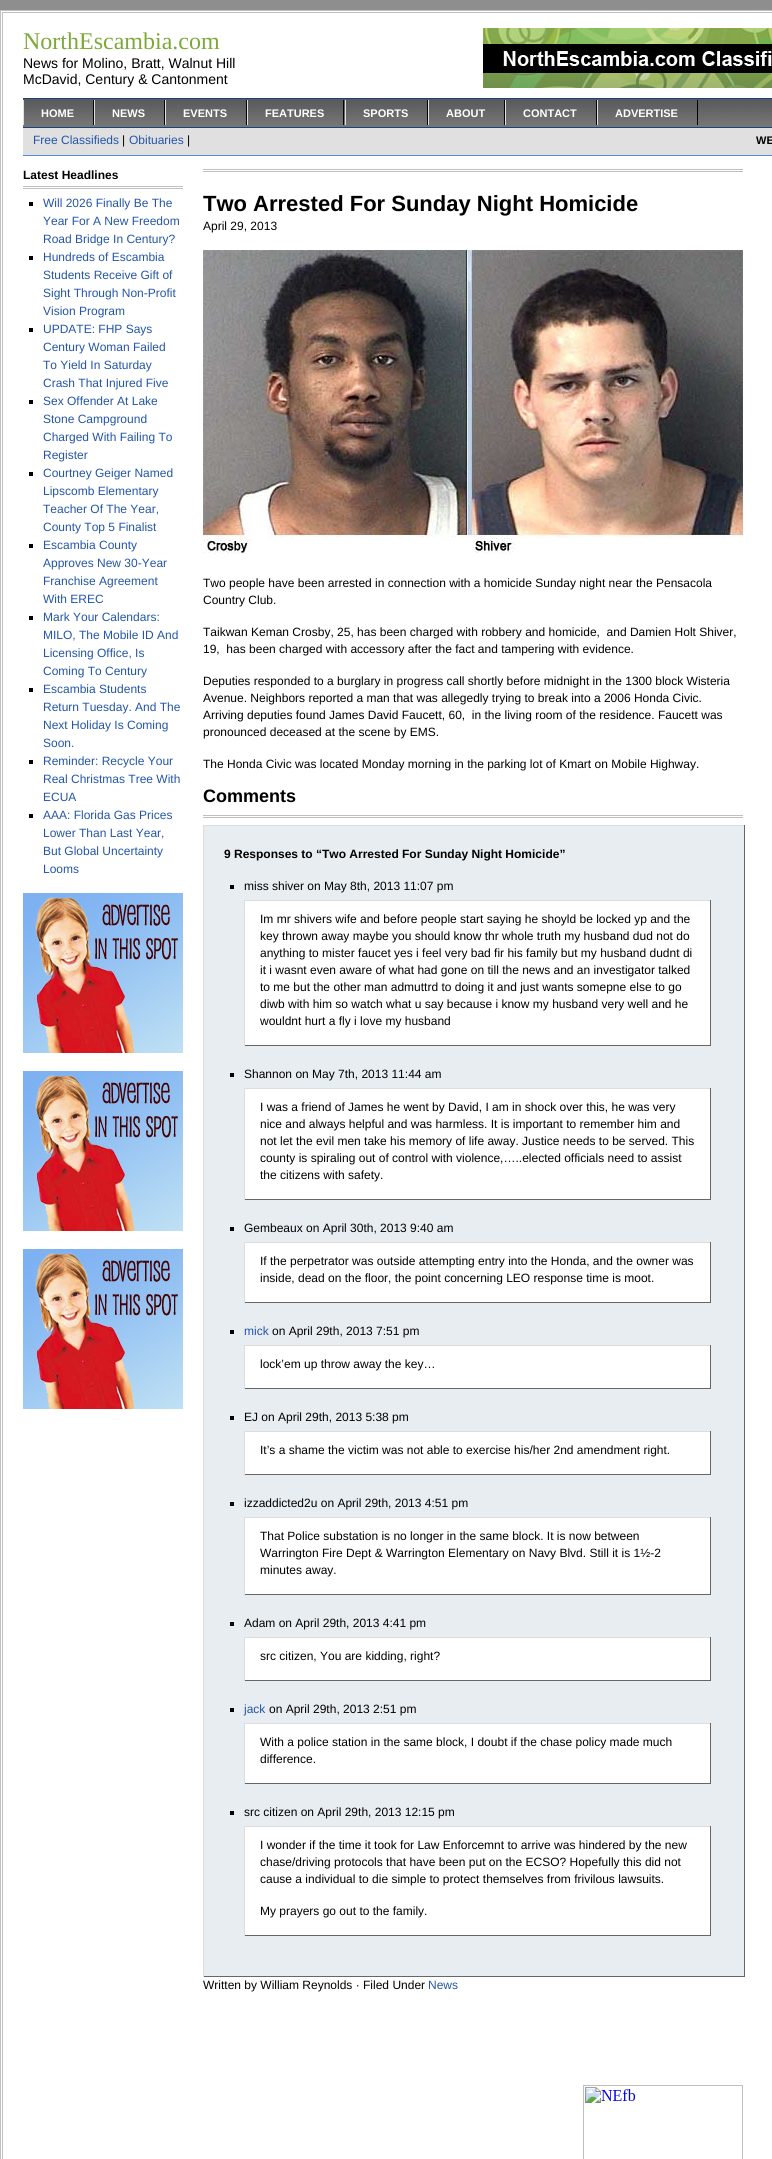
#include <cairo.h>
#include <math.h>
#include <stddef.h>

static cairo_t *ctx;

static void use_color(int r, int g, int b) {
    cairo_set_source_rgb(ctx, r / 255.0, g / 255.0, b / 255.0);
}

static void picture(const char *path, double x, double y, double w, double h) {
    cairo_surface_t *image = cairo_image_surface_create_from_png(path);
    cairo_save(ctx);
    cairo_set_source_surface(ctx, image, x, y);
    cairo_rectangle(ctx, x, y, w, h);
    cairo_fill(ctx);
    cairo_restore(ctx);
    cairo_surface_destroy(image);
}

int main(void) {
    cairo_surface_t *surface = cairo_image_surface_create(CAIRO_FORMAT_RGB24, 772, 2159);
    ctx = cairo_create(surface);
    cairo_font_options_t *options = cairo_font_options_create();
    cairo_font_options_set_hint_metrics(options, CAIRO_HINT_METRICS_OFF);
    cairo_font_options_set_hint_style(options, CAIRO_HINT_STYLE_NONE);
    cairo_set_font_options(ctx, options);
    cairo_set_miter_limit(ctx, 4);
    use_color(143, 142, 142);
    cairo_paint(ctx);
    use_color(255, 255, 255);
    cairo_rectangle(ctx, 0.5, 10.5, 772, 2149);
    cairo_fill_preserve(ctx);
    use_color(192, 192, 192);
    cairo_set_line_width(ctx, 1);
    cairo_stroke(ctx);
    cairo_rectangle(ctx, 2.5, 12.5, 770, 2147);
    cairo_stroke(ctx);
    cairo_select_font_face(ctx, "Liberation Serif", CAIRO_FONT_SLANT_NORMAL, CAIRO_FONT_WEIGHT_NORMAL);
    cairo_set_font_size(ctx, 24);
    use_color(125, 169, 57);
    cairo_move_to(ctx, 23, 49);
    cairo_show_text(ctx, "NorthEscambia.com");
    cairo_select_font_face(ctx, "Liberation Sans", CAIRO_FONT_SLANT_NORMAL, CAIRO_FONT_WEIGHT_NORMAL);
    cairo_set_font_size(ctx, 14);
    use_color(0, 0, 0);
    cairo_move_to(ctx, 23, 68);
    cairo_show_text(ctx, "News for Molino, Bratt, Walnut Hill");
    cairo_move_to(ctx, 23, 84);
    cairo_show_text(ctx, "McDavid, Century & Cantonment");
    picture("img1.png", 483, 28, 289, 60);
    picture("img2.png", 23, 99, 749, 28);
    use_color(26, 65, 130);
    cairo_rectangle(ctx, 23, 98, 749, 1);
    cairo_fill(ctx);
    cairo_rectangle(ctx, 23, 127, 749, 1);
    cairo_fill(ctx);
    cairo_select_font_face(ctx, "Liberation Sans", CAIRO_FONT_SLANT_NORMAL, CAIRO_FONT_WEIGHT_BOLD);
    cairo_set_font_size(ctx, 11);
    use_color(255, 255, 255);
    cairo_move_to(ctx, 41, 117);
    cairo_show_text(ctx, "HOME");
    use_color(0, 0, 0);
    cairo_rectangle(ctx, 93, 100, 1, 25);
    cairo_fill(ctx);
    use_color(224, 224, 224);
    cairo_rectangle(ctx, 23, 100, 1, 25);
    cairo_fill(ctx);
    use_color(255, 255, 255);
    cairo_move_to(ctx, 112, 117);
    cairo_show_text(ctx, "NEWS");
    use_color(0, 0, 0);
    cairo_rectangle(ctx, 164, 100, 1, 25);
    cairo_fill(ctx);
    use_color(224, 224, 224);
    cairo_rectangle(ctx, 94, 100, 1, 25);
    cairo_fill(ctx);
    use_color(255, 255, 255);
    cairo_move_to(ctx, 183, 117);
    cairo_show_text(ctx, "EVENTS");
    use_color(0, 0, 0);
    cairo_rectangle(ctx, 246, 100, 1, 25);
    cairo_fill(ctx);
    use_color(224, 224, 224);
    cairo_rectangle(ctx, 165, 100, 1, 25);
    cairo_fill(ctx);
    use_color(255, 255, 255);
    cairo_move_to(ctx, 265, 117);
    cairo_show_text(ctx, "FEATURES");
    use_color(0, 0, 0);
    cairo_rectangle(ctx, 343, 100, 1, 25);
    cairo_fill(ctx);
    use_color(224, 224, 224);
    cairo_rectangle(ctx, 247, 100, 1, 25);
    cairo_fill(ctx);
    use_color(255, 255, 255);
    cairo_move_to(ctx, 363, 117);
    cairo_show_text(ctx, "SPORTS");
    use_color(0, 0, 0);
    cairo_rectangle(ctx, 427, 100, 1, 25);
    cairo_fill(ctx);
    use_color(224, 224, 224);
    cairo_rectangle(ctx, 345, 100, 1, 25);
    cairo_fill(ctx);
    use_color(255, 255, 255);
    cairo_move_to(ctx, 446, 117);
    cairo_show_text(ctx, "ABOUT");
    use_color(0, 0, 0);
    cairo_rectangle(ctx, 504, 100, 1, 25);
    cairo_fill(ctx);
    use_color(224, 224, 224);
    cairo_rectangle(ctx, 428, 100, 1, 25);
    cairo_fill(ctx);
    use_color(255, 255, 255);
    cairo_move_to(ctx, 523, 117);
    cairo_show_text(ctx, "CONTACT");
    use_color(0, 0, 0);
    cairo_rectangle(ctx, 596, 100, 1, 25);
    cairo_fill(ctx);
    use_color(224, 224, 224);
    cairo_rectangle(ctx, 505, 100, 1, 25);
    cairo_fill(ctx);
    use_color(255, 255, 255);
    cairo_move_to(ctx, 615, 117);
    cairo_show_text(ctx, "ADVERTISE");
    use_color(0, 0, 0);
    cairo_rectangle(ctx, 697, 100, 1, 25);
    cairo_fill(ctx);
    use_color(224, 224, 224);
    cairo_rectangle(ctx, 597, 100, 1, 25);
    cairo_fill(ctx);
    cairo_rectangle(ctx, 23, 128, 749, 27);
    cairo_fill(ctx);
    use_color(84, 138, 218);
    cairo_rectangle(ctx, 23, 155, 749, 1);
    cairo_fill(ctx);
    cairo_select_font_face(ctx, "Liberation Sans", CAIRO_FONT_SLANT_NORMAL, CAIRO_FONT_WEIGHT_NORMAL);
    cairo_set_font_size(ctx, 12);
    use_color(34, 85, 170);
    cairo_move_to(ctx, 33, 144);
    cairo_show_text(ctx, "Free Classifieds");
    use_color(0, 0, 0);
    cairo_move_to(ctx, 122, 144);
    cairo_show_text(ctx, "|");
    use_color(34, 85, 170);
    cairo_move_to(ctx, 129, 144);
    cairo_show_text(ctx, "Obituaries");
    use_color(0, 0, 0);
    cairo_move_to(ctx, 187, 144);
    cairo_show_text(ctx, "|");
    cairo_select_font_face(ctx, "Liberation Sans", CAIRO_FONT_SLANT_NORMAL, CAIRO_FONT_WEIGHT_BOLD);
    cairo_set_font_size(ctx, 11);
    cairo_move_to(ctx, 756, 144);
    cairo_show_text(ctx, "WE");
    use_color(192, 192, 192);
    cairo_rectangle(ctx, 23, 186, 160, 1);
    cairo_fill(ctx);
    cairo_rectangle(ctx, 23, 188, 160, 1);
    cairo_fill(ctx);
    cairo_set_font_size(ctx, 12);
    use_color(0, 0, 0);
    cairo_move_to(ctx, 23, 179);
    cairo_show_text(ctx, "Latest Headlines");
    cairo_rectangle(ctx, 29, 202, 4, 4);
    cairo_fill(ctx);
    cairo_select_font_face(ctx, "Liberation Sans", CAIRO_FONT_SLANT_NORMAL, CAIRO_FONT_WEIGHT_NORMAL);
    use_color(34, 85, 170);
    cairo_move_to(ctx, 43, 207);
    cairo_show_text(ctx, "Will 2026 Finally Be The");
    cairo_move_to(ctx, 43, 225);
    cairo_show_text(ctx, "Year For A New Freedom");
    cairo_move_to(ctx, 43, 243);
    cairo_show_text(ctx, "Road Bridge In Century?");
    use_color(0, 0, 0);
    cairo_rectangle(ctx, 29, 256, 4, 4);
    cairo_fill(ctx);
    use_color(34, 85, 170);
    cairo_move_to(ctx, 43, 261);
    cairo_show_text(ctx, "Hundreds of Escambia");
    cairo_move_to(ctx, 43, 279);
    cairo_show_text(ctx, "Students Receive Gift of");
    cairo_move_to(ctx, 43, 297);
    cairo_show_text(ctx, "Sight Through Non-Profit");
    cairo_move_to(ctx, 43, 315);
    cairo_show_text(ctx, "Vision Program");
    use_color(0, 0, 0);
    cairo_rectangle(ctx, 29, 328, 4, 4);
    cairo_fill(ctx);
    use_color(34, 85, 170);
    cairo_move_to(ctx, 43, 333);
    cairo_show_text(ctx, "UPDATE: FHP Says");
    cairo_move_to(ctx, 43, 351);
    cairo_show_text(ctx, "Century Woman Failed");
    cairo_move_to(ctx, 43, 369);
    cairo_show_text(ctx, "To Yield In Saturday");
    cairo_move_to(ctx, 43, 387);
    cairo_show_text(ctx, "Crash That Injured Five");
    use_color(0, 0, 0);
    cairo_rectangle(ctx, 29, 400, 4, 4);
    cairo_fill(ctx);
    use_color(34, 85, 170);
    cairo_move_to(ctx, 43, 405);
    cairo_show_text(ctx, "Sex Offender At Lake");
    cairo_move_to(ctx, 43, 423);
    cairo_show_text(ctx, "Stone Campground");
    cairo_move_to(ctx, 43, 441);
    cairo_show_text(ctx, "Charged With Failing To");
    cairo_move_to(ctx, 43, 459);
    cairo_show_text(ctx, "Register");
    use_color(0, 0, 0);
    cairo_rectangle(ctx, 29, 472, 4, 4);
    cairo_fill(ctx);
    use_color(34, 85, 170);
    cairo_move_to(ctx, 43, 477);
    cairo_show_text(ctx, "Courtney Geiger Named");
    cairo_move_to(ctx, 43, 495);
    cairo_show_text(ctx, "Lipscomb Elementary");
    cairo_move_to(ctx, 43, 513);
    cairo_show_text(ctx, "Teacher Of The Year,");
    cairo_move_to(ctx, 43, 531);
    cairo_show_text(ctx, "County Top 5 Finalist");
    use_color(0, 0, 0);
    cairo_rectangle(ctx, 29, 544, 4, 4);
    cairo_fill(ctx);
    use_color(34, 85, 170);
    cairo_move_to(ctx, 43, 549);
    cairo_show_text(ctx, "Escambia County");
    cairo_move_to(ctx, 43, 567);
    cairo_show_text(ctx, "Approves New 30-Year");
    cairo_move_to(ctx, 43, 585);
    cairo_show_text(ctx, "Franchise Agreement");
    cairo_move_to(ctx, 43, 603);
    cairo_show_text(ctx, "With EREC");
    use_color(0, 0, 0);
    cairo_rectangle(ctx, 29, 616, 4, 4);
    cairo_fill(ctx);
    use_color(34, 85, 170);
    cairo_move_to(ctx, 43, 621);
    cairo_show_text(ctx, "Mark Your Calendars:");
    cairo_move_to(ctx, 43, 639);
    cairo_show_text(ctx, "MILO, The Mobile ID And");
    cairo_move_to(ctx, 43, 657);
    cairo_show_text(ctx, "Licensing Office, Is");
    cairo_move_to(ctx, 43, 675);
    cairo_show_text(ctx, "Coming To Century");
    use_color(0, 0, 0);
    cairo_rectangle(ctx, 29, 688, 4, 4);
    cairo_fill(ctx);
    use_color(34, 85, 170);
    cairo_move_to(ctx, 43, 693);
    cairo_show_text(ctx, "Escambia Students");
    cairo_move_to(ctx, 43, 711);
    cairo_show_text(ctx, "Return Tuesday. And The");
    cairo_move_to(ctx, 43, 729);
    cairo_show_text(ctx, "Next Holiday Is Coming");
    cairo_move_to(ctx, 43, 747);
    cairo_show_text(ctx, "Soon.");
    use_color(0, 0, 0);
    cairo_rectangle(ctx, 29, 760, 4, 4);
    cairo_fill(ctx);
    use_color(34, 85, 170);
    cairo_move_to(ctx, 43, 765);
    cairo_show_text(ctx, "Reminder: Recycle Your");
    cairo_move_to(ctx, 43, 783);
    cairo_show_text(ctx, "Real Christmas Tree With");
    cairo_move_to(ctx, 43, 801);
    cairo_show_text(ctx, "ECUA");
    use_color(0, 0, 0);
    cairo_rectangle(ctx, 29, 814, 4, 4);
    cairo_fill(ctx);
    use_color(34, 85, 170);
    cairo_move_to(ctx, 43, 819);
    cairo_show_text(ctx, "AAA: Florida Gas Prices");
    cairo_move_to(ctx, 43, 837);
    cairo_show_text(ctx, "Lower Than Last Year,");
    cairo_move_to(ctx, 43, 855);
    cairo_show_text(ctx, "But Global Uncertainty");
    cairo_move_to(ctx, 43, 873);
    cairo_show_text(ctx, "Looms");
    picture("img3.png", 23, 893, 160, 160);
    picture("img3.png", 23, 1071, 160, 160);
    picture("img3.png", 23, 1249, 160, 160);
    use_color(192, 192, 192);
    cairo_rectangle(ctx, 203, 169, 540, 1);
    cairo_fill(ctx);
    cairo_rectangle(ctx, 203, 171, 540, 1);
    cairo_fill(ctx);
    cairo_select_font_face(ctx, "Liberation Sans", CAIRO_FONT_SLANT_NORMAL, CAIRO_FONT_WEIGHT_BOLD);
    cairo_set_font_size(ctx, 22);
    use_color(0, 0, 0);
    cairo_move_to(ctx, 203, 211);
    cairo_show_text(ctx, "Two Arrested For Sunday Night Homicide");
    cairo_select_font_face(ctx, "Liberation Sans", CAIRO_FONT_SLANT_NORMAL, CAIRO_FONT_WEIGHT_NORMAL);
    cairo_set_font_size(ctx, 12);
    cairo_move_to(ctx, 203, 230);
    cairo_show_text(ctx, "April 29, 2013");
    picture("img4.png", 203, 250, 540, 304);
    cairo_move_to(ctx, 203, 587);
    cairo_show_text(ctx, "Two people have been arrested in connection with a homicide Sunday night near the Pensacola");
    cairo_move_to(ctx, 203, 604);
    cairo_show_text(ctx, "Country Club.");
    cairo_move_to(ctx, 203, 636);
    cairo_show_text(ctx, "Taikwan Keman Crosby, 25, has been charged with robbery and homicide,  and Damien Holt Shiver,");
    cairo_move_to(ctx, 203, 653);
    cairo_show_text(ctx, "19,  has been charged with accessory after the fact and tampering with evidence.");
    cairo_move_to(ctx, 203, 685);
    cairo_show_text(ctx, "Deputies responded to a burglary in progress call shortly before midnight in the 1300 block Wisteria");
    cairo_move_to(ctx, 203, 702);
    cairo_show_text(ctx, "Avenue. Neighbors reported a man that was allegedly trying to break into a 2006 Honda Civic.");
    cairo_move_to(ctx, 203, 719);
    cairo_show_text(ctx, "Arriving deputies found James David Faucett, 60,  in the living room of the residence. Faucett was");
    cairo_move_to(ctx, 203, 736);
    cairo_show_text(ctx, "pronounced deceased at the scene by EMS.");
    cairo_move_to(ctx, 203, 768);
    cairo_show_text(ctx, "The Honda Civic was located Monday morning in the parking lot of Kmart on Mobile Highway.");
    cairo_select_font_face(ctx, "Liberation Sans", CAIRO_FONT_SLANT_NORMAL, CAIRO_FONT_WEIGHT_BOLD);
    cairo_set_font_size(ctx, 18);
    cairo_move_to(ctx, 203, 802);
    cairo_show_text(ctx, "Comments");
    use_color(232, 237, 241);
    cairo_rectangle(ctx, 204, 826, 540, 1150);
    cairo_fill(ctx);
    use_color(221, 221, 221);
    cairo_rectangle(ctx, 203, 825, 542, 1);
    cairo_fill(ctx);
    use_color(102, 102, 102);
    cairo_rectangle(ctx, 744, 825, 1, 1152);
    cairo_fill(ctx);
    cairo_rectangle(ctx, 203, 1976, 542, 1);
    cairo_fill(ctx);
    use_color(221, 221, 221);
    cairo_rectangle(ctx, 203, 825, 1, 1152);
    cairo_fill(ctx);
    cairo_set_font_size(ctx, 12);
    use_color(0, 0, 0);
    cairo_move_to(ctx, 224, 858);
    cairo_show_text(ctx, "9 Responses to “Two Arrested For Sunday Night Homicide”");
    cairo_rectangle(ctx, 230, 885, 4, 4);
    cairo_fill(ctx);
    cairo_select_font_face(ctx, "Liberation Sans", CAIRO_FONT_SLANT_NORMAL, CAIRO_FONT_WEIGHT_NORMAL);
    cairo_move_to(ctx, 244, 890);
    cairo_show_text(ctx, "miss shiver on May 8th, 2013 11:07 pm");
    use_color(255, 255, 255);
    cairo_rectangle(ctx, 245, 901, 465, 144);
    cairo_fill(ctx);
    use_color(221, 221, 221);
    cairo_rectangle(ctx, 244, 900, 467, 1);
    cairo_fill(ctx);
    use_color(102, 102, 102);
    cairo_rectangle(ctx, 710, 900, 1, 146);
    cairo_fill(ctx);
    cairo_rectangle(ctx, 244, 1045, 467, 1);
    cairo_fill(ctx);
    use_color(221, 221, 221);
    cairo_rectangle(ctx, 244, 900, 1, 146);
    cairo_fill(ctx);
    use_color(0, 0, 0);
    cairo_move_to(ctx, 260, 923);
    cairo_show_text(ctx, "Im mr shivers wife and before people start saying he shoyld be locked yp and the");
    cairo_move_to(ctx, 260, 940);
    cairo_show_text(ctx, "key thrown away maybe you should know thr whole truth my husband dud not do");
    cairo_move_to(ctx, 260, 957);
    cairo_show_text(ctx, "anything to mister faucet yes i feel very bad fir his family but my husband dudnt di");
    cairo_move_to(ctx, 260, 974);
    cairo_show_text(ctx, "it i wasnt even aware of what had gone on till the news and an investigator talked");
    cairo_move_to(ctx, 260, 991);
    cairo_show_text(ctx, "to me but the other man admuttrd to doing it and just wants somepne else to go");
    cairo_move_to(ctx, 260, 1008);
    cairo_show_text(ctx, "diwb with him so watch what u say because i know my husband very well and he");
    cairo_move_to(ctx, 260, 1025);
    cairo_show_text(ctx, "wouldnt hurt a fly i love my husband");
    cairo_rectangle(ctx, 230, 1073, 4, 4);
    cairo_fill(ctx);
    cairo_move_to(ctx, 244, 1078);
    cairo_show_text(ctx, "Shannon on May 7th, 2013 11:44 am");
    use_color(255, 255, 255);
    cairo_rectangle(ctx, 245, 1089, 465, 110);
    cairo_fill(ctx);
    use_color(221, 221, 221);
    cairo_rectangle(ctx, 244, 1088, 467, 1);
    cairo_fill(ctx);
    use_color(102, 102, 102);
    cairo_rectangle(ctx, 710, 1088, 1, 112);
    cairo_fill(ctx);
    cairo_rectangle(ctx, 244, 1199, 467, 1);
    cairo_fill(ctx);
    use_color(221, 221, 221);
    cairo_rectangle(ctx, 244, 1088, 1, 112);
    cairo_fill(ctx);
    use_color(0, 0, 0);
    cairo_move_to(ctx, 260, 1111);
    cairo_show_text(ctx, "I was a friend of James he went by David, I am in shock over this, he was very");
    cairo_move_to(ctx, 260, 1128);
    cairo_show_text(ctx, "nice and always helpful and was harmless. It is important to remember him and");
    cairo_move_to(ctx, 260, 1145);
    cairo_show_text(ctx, "not let the evil men take his memory of life away. Justice needs to be served. This");
    cairo_move_to(ctx, 260, 1162);
    cairo_show_text(ctx, "county is spiraling out of control with violence,…..elected officials need to assist");
    cairo_move_to(ctx, 260, 1179);
    cairo_show_text(ctx, "the citizens with safety.");
    cairo_rectangle(ctx, 230, 1227, 4, 4);
    cairo_fill(ctx);
    cairo_move_to(ctx, 244, 1232);
    cairo_show_text(ctx, "Gembeaux on April 30th, 2013 9:40 am");
    use_color(255, 255, 255);
    cairo_rectangle(ctx, 245, 1243, 465, 59);
    cairo_fill(ctx);
    use_color(221, 221, 221);
    cairo_rectangle(ctx, 244, 1242, 467, 1);
    cairo_fill(ctx);
    use_color(102, 102, 102);
    cairo_rectangle(ctx, 710, 1242, 1, 61);
    cairo_fill(ctx);
    cairo_rectangle(ctx, 244, 1302, 467, 1);
    cairo_fill(ctx);
    use_color(221, 221, 221);
    cairo_rectangle(ctx, 244, 1242, 1, 61);
    cairo_fill(ctx);
    use_color(0, 0, 0);
    cairo_move_to(ctx, 260, 1265);
    cairo_show_text(ctx, "If the perpetrator was outside attempting entry into the Honda, and the owner was");
    cairo_move_to(ctx, 260, 1282);
    cairo_show_text(ctx, "inside, dead on the floor, the point concerning LEO response time is moot.");
    cairo_rectangle(ctx, 230, 1330, 4, 4);
    cairo_fill(ctx);
    use_color(34, 85, 170);
    cairo_move_to(ctx, 244, 1335);
    cairo_show_text(ctx, "mick");
    use_color(0, 0, 0);
    cairo_move_to(ctx, 272, 1335);
    cairo_show_text(ctx, "on April 29th, 2013 7:51 pm");
    use_color(255, 255, 255);
    cairo_rectangle(ctx, 245, 1346, 465, 42);
    cairo_fill(ctx);
    use_color(221, 221, 221);
    cairo_rectangle(ctx, 244, 1345, 467, 1);
    cairo_fill(ctx);
    use_color(102, 102, 102);
    cairo_rectangle(ctx, 710, 1345, 1, 44);
    cairo_fill(ctx);
    cairo_rectangle(ctx, 244, 1388, 467, 1);
    cairo_fill(ctx);
    use_color(221, 221, 221);
    cairo_rectangle(ctx, 244, 1345, 1, 44);
    cairo_fill(ctx);
    use_color(0, 0, 0);
    cairo_move_to(ctx, 260, 1368);
    cairo_show_text(ctx, "lock’em up throw away the key…");
    cairo_rectangle(ctx, 230, 1416, 4, 4);
    cairo_fill(ctx);
    cairo_move_to(ctx, 244, 1421);
    cairo_show_text(ctx, "EJ on April 29th, 2013 5:38 pm");
    use_color(255, 255, 255);
    cairo_rectangle(ctx, 245, 1432, 465, 42);
    cairo_fill(ctx);
    use_color(221, 221, 221);
    cairo_rectangle(ctx, 244, 1431, 467, 1);
    cairo_fill(ctx);
    use_color(102, 102, 102);
    cairo_rectangle(ctx, 710, 1431, 1, 44);
    cairo_fill(ctx);
    cairo_rectangle(ctx, 244, 1474, 467, 1);
    cairo_fill(ctx);
    use_color(221, 221, 221);
    cairo_rectangle(ctx, 244, 1431, 1, 44);
    cairo_fill(ctx);
    use_color(0, 0, 0);
    cairo_move_to(ctx, 260, 1454);
    cairo_show_text(ctx, "It’s a shame the victim was not able to exercise his/her 2nd amendment right.");
    cairo_rectangle(ctx, 230, 1502, 4, 4);
    cairo_fill(ctx);
    cairo_move_to(ctx, 244, 1507);
    cairo_show_text(ctx, "izzaddicted2u on April 29th, 2013 4:51 pm");
    use_color(255, 255, 255);
    cairo_rectangle(ctx, 245, 1518, 465, 76);
    cairo_fill(ctx);
    use_color(221, 221, 221);
    cairo_rectangle(ctx, 244, 1517, 467, 1);
    cairo_fill(ctx);
    use_color(102, 102, 102);
    cairo_rectangle(ctx, 710, 1517, 1, 78);
    cairo_fill(ctx);
    cairo_rectangle(ctx, 244, 1594, 467, 1);
    cairo_fill(ctx);
    use_color(221, 221, 221);
    cairo_rectangle(ctx, 244, 1517, 1, 78);
    cairo_fill(ctx);
    use_color(0, 0, 0);
    cairo_move_to(ctx, 260, 1540);
    cairo_show_text(ctx, "That Police substation is no longer in the same block. It is now between");
    cairo_move_to(ctx, 260, 1557);
    cairo_show_text(ctx, "Warrington Fire Dept & Warrington Elementary on Navy Blvd. Still it is 1½-2");
    cairo_move_to(ctx, 260, 1574);
    cairo_show_text(ctx, "minutes away.");
    cairo_rectangle(ctx, 230, 1622, 4, 4);
    cairo_fill(ctx);
    cairo_move_to(ctx, 244, 1627);
    cairo_show_text(ctx, "Adam on April 29th, 2013 4:41 pm");
    use_color(255, 255, 255);
    cairo_rectangle(ctx, 245, 1638, 465, 42);
    cairo_fill(ctx);
    use_color(221, 221, 221);
    cairo_rectangle(ctx, 244, 1637, 467, 1);
    cairo_fill(ctx);
    use_color(102, 102, 102);
    cairo_rectangle(ctx, 710, 1637, 1, 44);
    cairo_fill(ctx);
    cairo_rectangle(ctx, 244, 1680, 467, 1);
    cairo_fill(ctx);
    use_color(221, 221, 221);
    cairo_rectangle(ctx, 244, 1637, 1, 44);
    cairo_fill(ctx);
    use_color(0, 0, 0);
    cairo_move_to(ctx, 260, 1660);
    cairo_show_text(ctx, "src citizen, You are kidding, right?");
    cairo_rectangle(ctx, 230, 1708, 4, 4);
    cairo_fill(ctx);
    use_color(34, 85, 170);
    cairo_move_to(ctx, 244, 1713);
    cairo_show_text(ctx, "jack");
    use_color(0, 0, 0);
    cairo_move_to(ctx, 269, 1713);
    cairo_show_text(ctx, "on April 29th, 2013 2:51 pm");
    use_color(255, 255, 255);
    cairo_rectangle(ctx, 245, 1724, 465, 59);
    cairo_fill(ctx);
    use_color(221, 221, 221);
    cairo_rectangle(ctx, 244, 1723, 467, 1);
    cairo_fill(ctx);
    use_color(102, 102, 102);
    cairo_rectangle(ctx, 710, 1723, 1, 61);
    cairo_fill(ctx);
    cairo_rectangle(ctx, 244, 1783, 467, 1);
    cairo_fill(ctx);
    use_color(221, 221, 221);
    cairo_rectangle(ctx, 244, 1723, 1, 61);
    cairo_fill(ctx);
    use_color(0, 0, 0);
    cairo_move_to(ctx, 260, 1746);
    cairo_show_text(ctx, "With a police station in the same block, I doubt if the chase policy made much");
    cairo_move_to(ctx, 260, 1763);
    cairo_show_text(ctx, "difference.");
    cairo_rectangle(ctx, 230, 1811, 4, 4);
    cairo_fill(ctx);
    cairo_move_to(ctx, 244, 1816);
    cairo_show_text(ctx, "src citizen on April 29th, 2013 12:15 pm");
    use_color(255, 255, 255);
    cairo_rectangle(ctx, 245, 1827, 465, 108);
    cairo_fill(ctx);
    use_color(221, 221, 221);
    cairo_rectangle(ctx, 244, 1826, 467, 1);
    cairo_fill(ctx);
    use_color(102, 102, 102);
    cairo_rectangle(ctx, 710, 1826, 1, 110);
    cairo_fill(ctx);
    cairo_rectangle(ctx, 244, 1935, 467, 1);
    cairo_fill(ctx);
    use_color(221, 221, 221);
    cairo_rectangle(ctx, 244, 1826, 1, 110);
    cairo_fill(ctx);
    use_color(0, 0, 0);
    cairo_move_to(ctx, 260, 1849);
    cairo_show_text(ctx, "I wonder if the time it took for Law Enforcemnt to arrive was hindered by the new");
    cairo_move_to(ctx, 260, 1866);
    cairo_show_text(ctx, "chase/driving protocols that have been put on the ECSO? Hopefully this did not");
    cairo_move_to(ctx, 260, 1883);
    cairo_show_text(ctx, "cause a individual to die simple to protect themselves from frivilous lawsuits.");
    cairo_move_to(ctx, 260, 1915);
    cairo_show_text(ctx, "My prayers go out to the family.");
    use_color(192, 192, 192);
    cairo_rectangle(ctx, 203, 815, 540, 1);
    cairo_fill(ctx);
    cairo_rectangle(ctx, 203, 817, 540, 1);
    cairo_fill(ctx);
    use_color(0, 0, 0);
    cairo_move_to(ctx, 203, 1989);
    cairo_show_text(ctx, "Written by William Reynolds · Filed Under");
    use_color(34, 85, 170);
    cairo_move_to(ctx, 428, 1989);
    cairo_show_text(ctx, "News");
    picture("img5.png", 583, 2085, 160, 74);
    cairo_surface_write_to_png(surface, "result.png");
    cairo_font_options_destroy(options);
    cairo_destroy(ctx);
    cairo_surface_destroy(surface);
    return 0;
}
